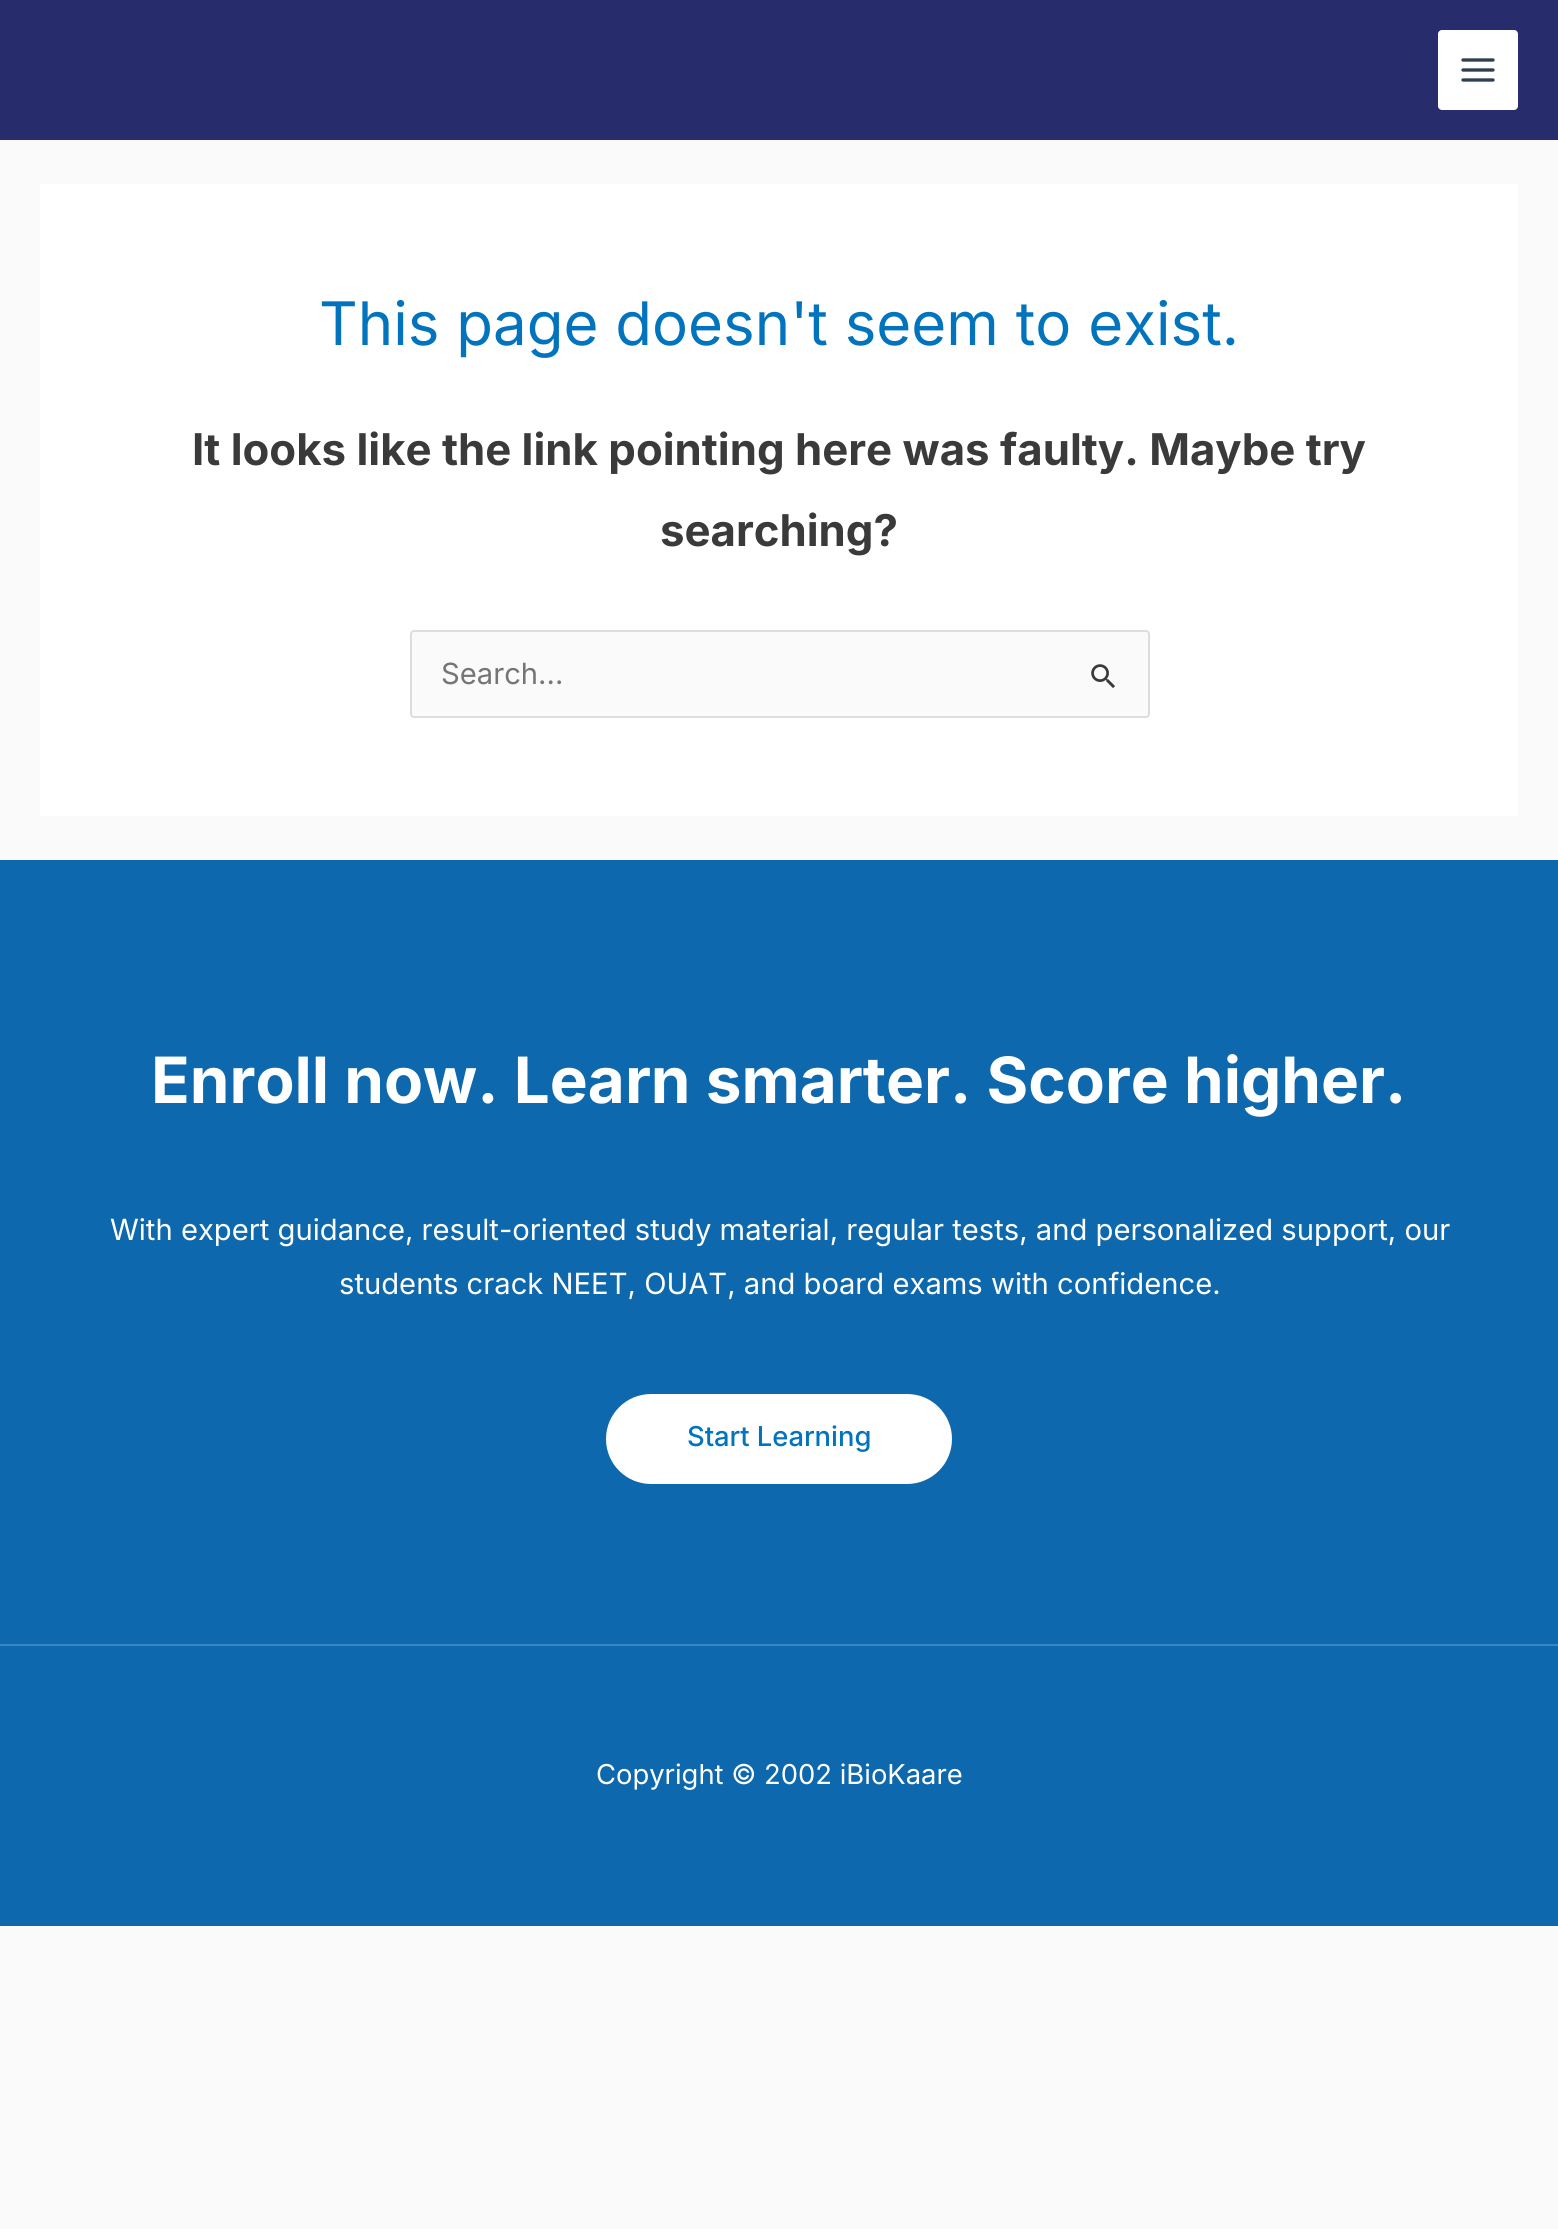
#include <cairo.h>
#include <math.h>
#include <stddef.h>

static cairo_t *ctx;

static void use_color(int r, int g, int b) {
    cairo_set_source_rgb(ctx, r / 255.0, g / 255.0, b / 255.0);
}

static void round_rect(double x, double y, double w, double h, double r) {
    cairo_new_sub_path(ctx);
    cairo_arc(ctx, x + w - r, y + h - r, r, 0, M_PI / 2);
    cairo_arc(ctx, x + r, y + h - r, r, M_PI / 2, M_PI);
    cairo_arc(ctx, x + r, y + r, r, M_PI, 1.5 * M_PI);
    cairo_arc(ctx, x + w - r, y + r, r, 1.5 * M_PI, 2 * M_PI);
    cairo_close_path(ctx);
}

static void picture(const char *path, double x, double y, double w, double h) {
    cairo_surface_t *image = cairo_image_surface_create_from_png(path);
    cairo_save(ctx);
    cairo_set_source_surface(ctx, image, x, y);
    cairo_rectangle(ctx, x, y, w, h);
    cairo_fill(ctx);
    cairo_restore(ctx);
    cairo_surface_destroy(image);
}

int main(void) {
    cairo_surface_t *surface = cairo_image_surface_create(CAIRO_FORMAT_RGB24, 1558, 2229);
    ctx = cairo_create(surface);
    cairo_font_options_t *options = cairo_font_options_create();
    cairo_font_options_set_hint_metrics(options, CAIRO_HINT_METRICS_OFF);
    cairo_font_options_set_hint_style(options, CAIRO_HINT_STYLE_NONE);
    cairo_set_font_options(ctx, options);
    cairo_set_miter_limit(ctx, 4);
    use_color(250, 250, 250);
    cairo_paint(ctx);
    use_color(39, 44, 108);
    cairo_rectangle(ctx, 0, 0, 1558, 140);
    cairo_fill(ctx);
    use_color(255, 255, 255);
    round_rect(1438, 30, 80, 80, 4);
    cairo_fill(ctx);
    picture("img1.png", 1461, 58, 34, 24);
    cairo_rectangle(ctx, 40, 184, 1478, 632);
    cairo_fill(ctx);
    cairo_select_font_face(ctx, "Inter", CAIRO_FONT_SLANT_NORMAL, CAIRO_FONT_WEIGHT_NORMAL);
    cairo_set_font_size(ctx, 60);
    use_color(2, 116, 190);
    cairo_move_to(ctx, 319, 345);
    cairo_show_text(ctx, "This page doesn't seem to exist.");
    cairo_select_font_face(ctx, "Inter", CAIRO_FONT_SLANT_NORMAL, CAIRO_FONT_WEIGHT_BOLD);
    cairo_set_font_size(ctx, 43.75);
    use_color(58, 58, 58);
    cairo_move_to(ctx, 192, 465);
    cairo_show_text(ctx, "It looks like the link pointing here was faulty. Maybe try");
    cairo_move_to(ctx, 660, 546);
    cairo_show_text(ctx, "searching?");
    use_color(250, 250, 250);
    round_rect(411, 631, 738, 86, 3);
    cairo_fill_preserve(ctx);
    use_color(221, 221, 221);
    cairo_stroke(ctx);
    cairo_select_font_face(ctx, "Inter", CAIRO_FONT_SLANT_NORMAL, CAIRO_FONT_WEIGHT_NORMAL);
    cairo_set_font_size(ctx, 29.2);
    use_color(117, 117, 117);
    cairo_move_to(ctx, 441, 684);
    cairo_show_text(ctx, "Search...");
    picture("img2.png", 1091, 664, 24, 24);
    use_color(13, 104, 174);
    cairo_rectangle(ctx, 0, 860, 1558, 1066);
    cairo_fill(ctx);
    cairo_select_font_face(ctx, "Inter", CAIRO_FONT_SLANT_NORMAL, CAIRO_FONT_WEIGHT_BOLD);
    cairo_set_font_size(ctx, 63.8);
    use_color(255, 255, 255);
    cairo_move_to(ctx, 151, 1103);
    cairo_show_text(ctx, "Enroll now. Learn smarter. Score higher.");
    cairo_select_font_face(ctx, "Inter", CAIRO_FONT_SLANT_NORMAL, CAIRO_FONT_WEIGHT_NORMAL);
    cairo_set_font_size(ctx, 29.2);
    cairo_move_to(ctx, 110, 1240);
    cairo_show_text(ctx, "With expert guidance, result-oriented study material, regular tests, and personalized support, our");
    cairo_move_to(ctx, 339, 1294);
    cairo_show_text(ctx, "students crack NEET, OUAT, and board exams with confidence.");
    round_rect(606, 1394, 346, 90, 45);
    cairo_fill(ctx);
    cairo_select_font_face(ctx, "Inter Medium", CAIRO_FONT_SLANT_NORMAL, CAIRO_FONT_WEIGHT_NORMAL);
    cairo_set_font_size(ctx, 27.4);
    use_color(2, 116, 190);
    cairo_move_to(ctx, 687, 1446);
    cairo_show_text(ctx, "Start Learning");
    use_color(61, 134, 190);
    cairo_rectangle(ctx, 0, 1644, 1558, 2);
    cairo_fill(ctx);
    cairo_select_font_face(ctx, "Inter", CAIRO_FONT_SLANT_NORMAL, CAIRO_FONT_WEIGHT_NORMAL);
    use_color(255, 255, 255);
    cairo_move_to(ctx, 596, 1784);
    cairo_show_text(ctx, "Copyright © 2002 iBioKaare");
    cairo_surface_write_to_png(surface, "result.png");
    cairo_font_options_destroy(options);
    cairo_destroy(ctx);
    cairo_surface_destroy(surface);
    return 0;
}
